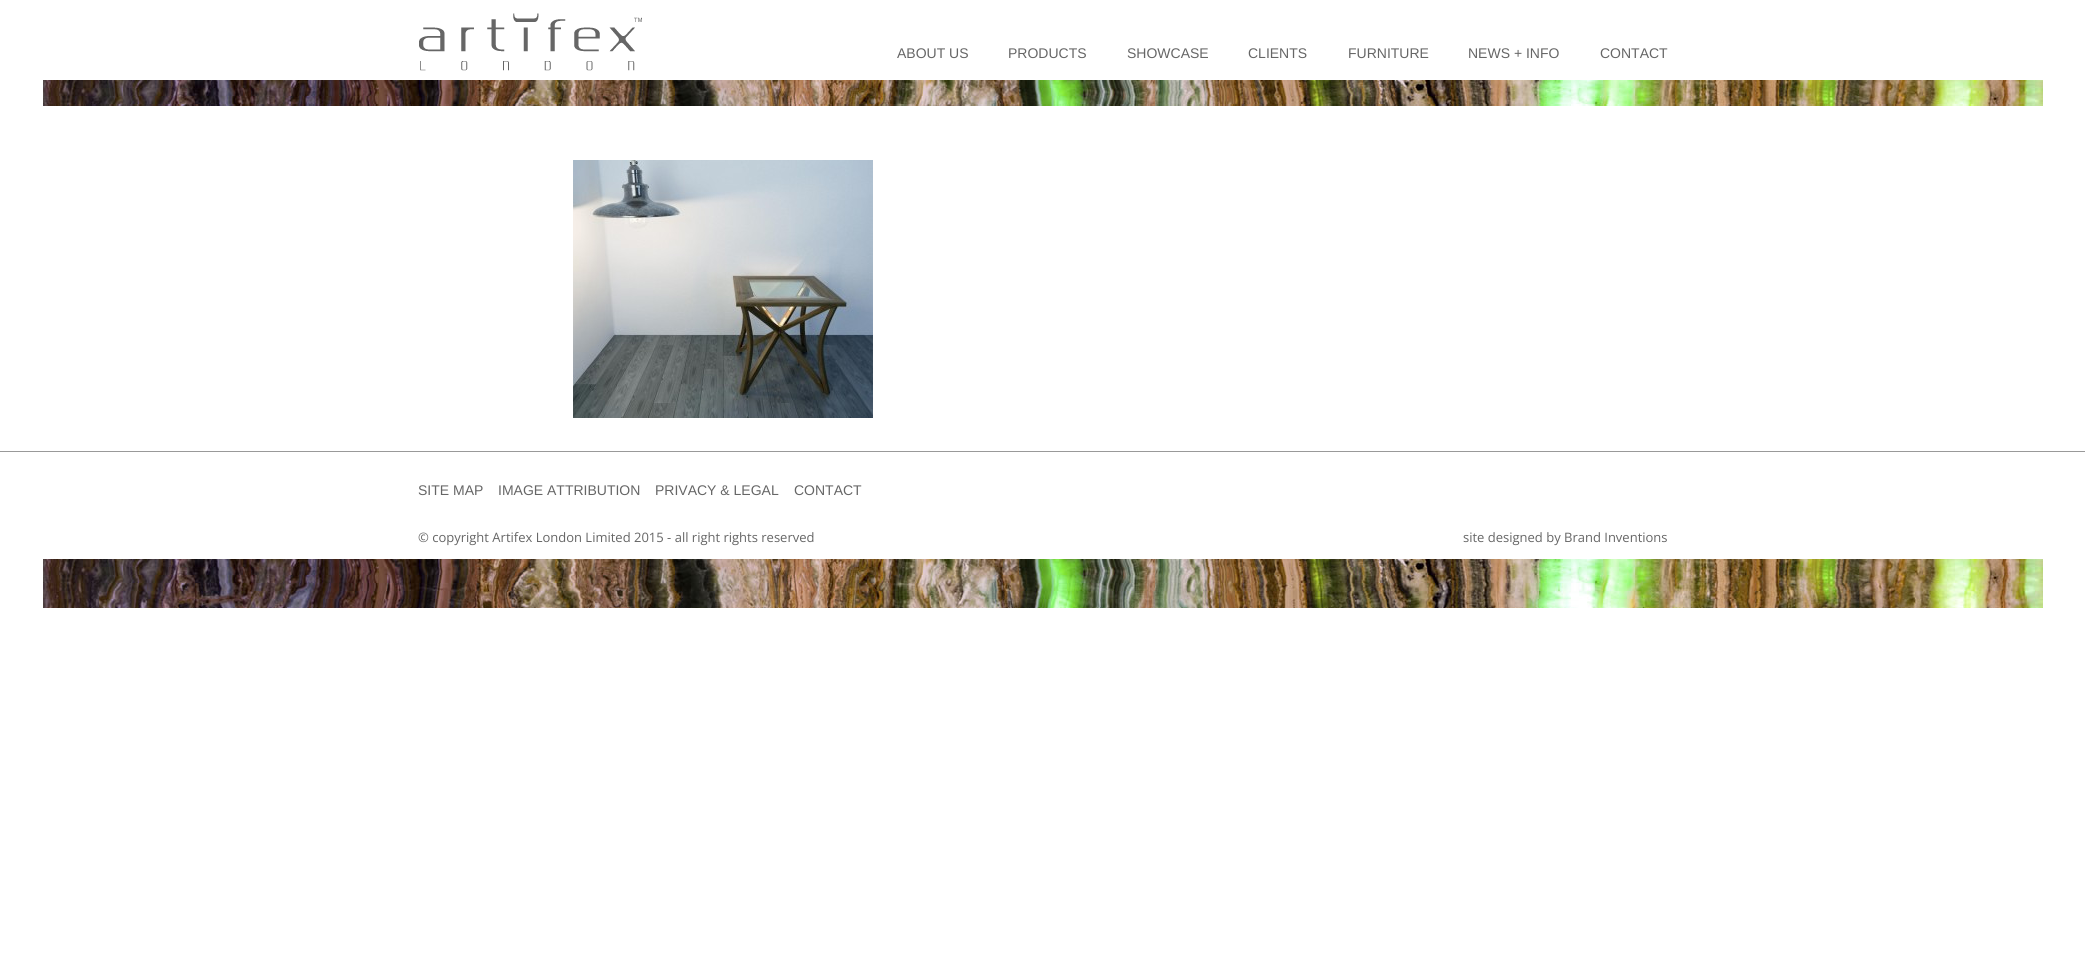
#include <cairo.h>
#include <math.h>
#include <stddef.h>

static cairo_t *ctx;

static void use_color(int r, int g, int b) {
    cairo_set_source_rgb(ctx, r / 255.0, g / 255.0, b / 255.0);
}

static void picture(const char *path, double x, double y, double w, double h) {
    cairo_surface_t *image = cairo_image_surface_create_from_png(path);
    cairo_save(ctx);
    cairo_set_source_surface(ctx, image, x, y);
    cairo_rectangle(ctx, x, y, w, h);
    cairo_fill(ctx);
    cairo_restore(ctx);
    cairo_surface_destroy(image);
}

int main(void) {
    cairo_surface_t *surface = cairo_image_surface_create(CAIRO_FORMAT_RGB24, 2085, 975);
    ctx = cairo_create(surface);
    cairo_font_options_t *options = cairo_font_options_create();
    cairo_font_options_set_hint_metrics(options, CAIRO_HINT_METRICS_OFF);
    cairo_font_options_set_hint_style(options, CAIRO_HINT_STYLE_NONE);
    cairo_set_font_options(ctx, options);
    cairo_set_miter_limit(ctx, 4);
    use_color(255, 255, 255);
    cairo_paint(ctx);
    picture("img1.png", 43, 80, 2000, 26);
    picture("img2.png", 419, 13, 223, 58);
    cairo_select_font_face(ctx, "Liberation Sans", CAIRO_FONT_SLANT_NORMAL, CAIRO_FONT_WEIGHT_NORMAL);
    cairo_set_font_size(ctx, 14);
    use_color(102, 102, 102);
    cairo_move_to(ctx, 897, 58);
    cairo_show_text(ctx, "ABOUT US");
    cairo_move_to(ctx, 1008, 58);
    cairo_show_text(ctx, "PRODUCTS");
    cairo_move_to(ctx, 1127, 58);
    cairo_show_text(ctx, "SHOWCASE");
    cairo_move_to(ctx, 1248, 58);
    cairo_show_text(ctx, "CLIENTS");
    cairo_move_to(ctx, 1348, 58);
    cairo_show_text(ctx, "FURNITURE");
    cairo_move_to(ctx, 1468, 58);
    cairo_show_text(ctx, "NEWS + INFO");
    cairo_move_to(ctx, 1600, 58);
    cairo_show_text(ctx, "CONTACT");
    picture("img3.png", 573, 160, 300, 258);
    picture("img4.png", 43, 559, 2000, 49);
    use_color(153, 153, 153);
    cairo_rectangle(ctx, 0, 451, 2085, 1);
    cairo_fill(ctx);
    use_color(102, 102, 102);
    cairo_move_to(ctx, 418, 495);
    cairo_show_text(ctx, "SITE MAP");
    cairo_move_to(ctx, 498, 495);
    cairo_show_text(ctx, "IMAGE ATTRIBUTION");
    cairo_move_to(ctx, 655, 495);
    cairo_show_text(ctx, "PRIVACY & LEGAL");
    cairo_move_to(ctx, 794, 495);
    cairo_show_text(ctx, "CONTACT");
    cairo_select_font_face(ctx, "Open Sans", CAIRO_FONT_SLANT_NORMAL, CAIRO_FONT_WEIGHT_NORMAL);
    cairo_set_font_size(ctx, 13);
    cairo_move_to(ctx, 418, 542);
    cairo_show_text(ctx, "© copyright Artifex London Limited 2015 - all right rights reserved");
    cairo_move_to(ctx, 1463, 542);
    cairo_show_text(ctx, "site designed by Brand Inventions");
    cairo_surface_write_to_png(surface, "result.png");
    cairo_font_options_destroy(options);
    cairo_destroy(ctx);
    cairo_surface_destroy(surface);
    return 0;
}
